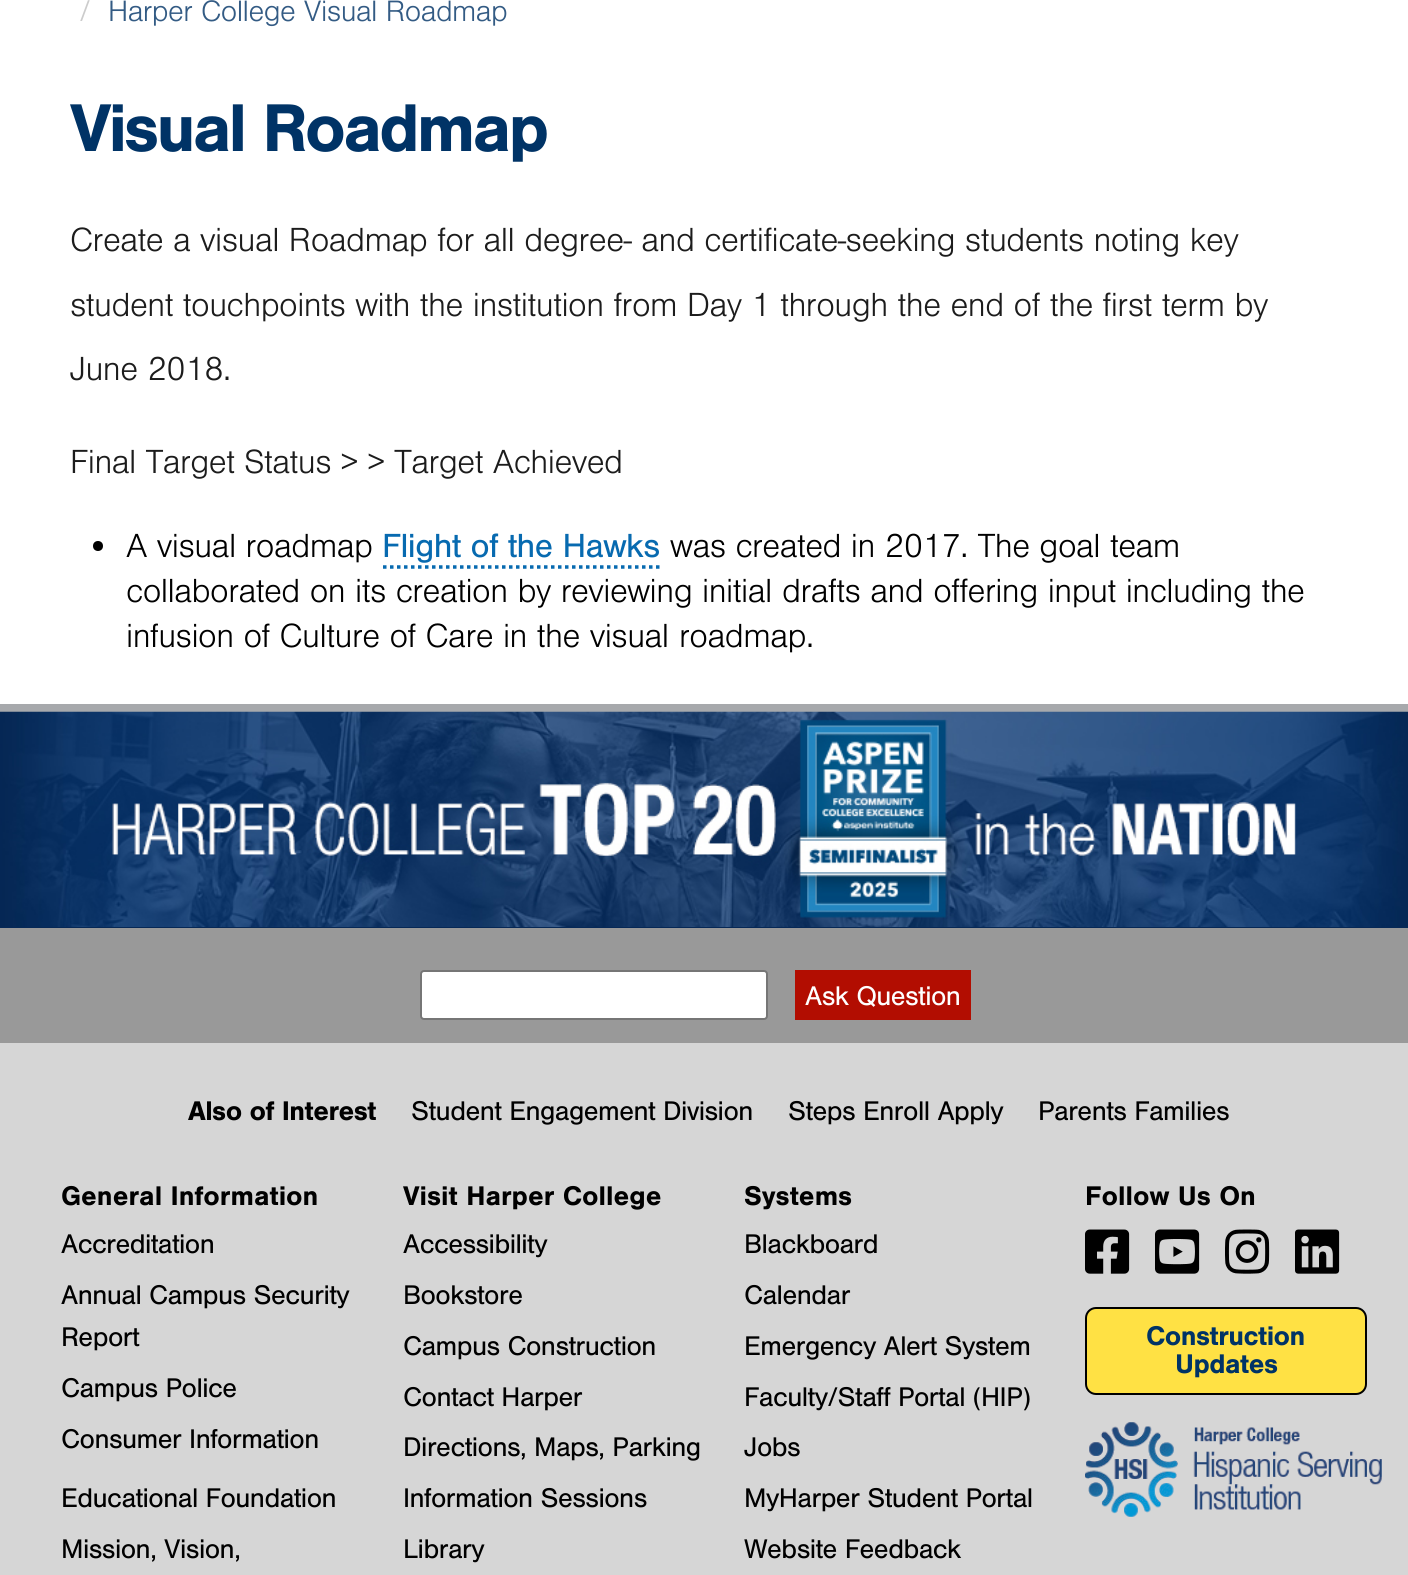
#include <cairo.h>
#include <math.h>
#include <stddef.h>

static cairo_t *ctx;

static void use_color(int r, int g, int b) {
    cairo_set_source_rgb(ctx, r / 255.0, g / 255.0, b / 255.0);
}

static void spaced_text(double x, double y, const char *s, double letter, double word) {
    cairo_move_to(ctx, x, y);
    while (*s) {
        char ch[5] = {0};
        int n = 0;
        do ch[n++] = *s++; while ((*s & 0xC0) == 0x80);
        cairo_show_text(ctx, ch);
        cairo_rel_move_to(ctx, letter + word * (*ch == ' '), 0);
    }
}

static void round_rect(double x, double y, double w, double h, double r) {
    cairo_new_sub_path(ctx);
    cairo_arc(ctx, x + w - r, y + h - r, r, 0, M_PI / 2);
    cairo_arc(ctx, x + r, y + h - r, r, M_PI / 2, M_PI);
    cairo_arc(ctx, x + r, y + r, r, M_PI, 1.5 * M_PI);
    cairo_arc(ctx, x + w - r, y + r, r, 1.5 * M_PI, 2 * M_PI);
    cairo_close_path(ctx);
}

static void picture(const char *path, double x, double y, double w, double h) {
    cairo_surface_t *image = cairo_image_surface_create_from_png(path);
    cairo_save(ctx);
    cairo_set_source_surface(ctx, image, x, y);
    cairo_rectangle(ctx, x, y, w, h);
    cairo_fill(ctx);
    cairo_restore(ctx);
    cairo_surface_destroy(image);
}

int main(void) {
    cairo_surface_t *surface = cairo_image_surface_create(CAIRO_FORMAT_RGB24, 1408, 1575);
    ctx = cairo_create(surface);
    cairo_font_options_t *options = cairo_font_options_create();
    cairo_font_options_set_hint_metrics(options, CAIRO_HINT_METRICS_OFF);
    cairo_font_options_set_hint_style(options, CAIRO_HINT_STYLE_NONE);
    cairo_set_font_options(ctx, options);
    cairo_set_miter_limit(ctx, 4);
    use_color(255, 255, 255);
    cairo_paint(ctx);
    cairo_select_font_face(ctx, "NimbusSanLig", CAIRO_FONT_SLANT_NORMAL, CAIRO_FONT_WEIGHT_NORMAL);
    cairo_set_font_size(ctx, 30.6);
    use_color(204, 204, 204);
    spaced_text(79, 21, "/", -0.53, 0);
    use_color(51, 91, 132);
    spaced_text(108, 21, "Harper College Visual Roadmap", -0.53, 0);
    cairo_select_font_face(ctx, "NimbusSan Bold", CAIRO_FONT_SLANT_NORMAL, CAIRO_FONT_WEIGHT_BOLD);
    cairo_set_font_size(ctx, 70);
    use_color(0, 51, 102);
    spaced_text(70, 151, "Visual Roadmap", -3, 0);
    cairo_select_font_face(ctx, "NimbusSanLig", CAIRO_FONT_SLANT_NORMAL, CAIRO_FONT_WEIGHT_NORMAL);
    cairo_set_font_size(ctx, 34.7);
    use_color(28, 28, 28);
    spaced_text(70, 251, "Create a visual Roadmap for all degree- and certificate-seeking students noting key", -0.53, 0);
    spaced_text(70, 316, "student touchpoints with the institution from Day 1 through the end of the first term by", -0.53, 0);
    spaced_text(70, 380, "June 2018.", -0.53, 0);
    spaced_text(70, 473, "Final Target Status > > Target Achieved", -0.53, 0);
    use_color(0, 0, 0);
    cairo_new_path(ctx);
    cairo_arc(ctx, 98, 546, 5, 0, 2 * M_PI);
    cairo_fill(ctx);
    spaced_text(126, 557, "A visual roadmap", -0.53, 0);
    cairo_select_font_face(ctx, "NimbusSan", CAIRO_FONT_SLANT_NORMAL, CAIRO_FONT_WEIGHT_NORMAL);
    use_color(7, 106, 176);
    spaced_text(382, 557, "Flight of the Hawks", -0.53, 0);
    cairo_new_path(ctx);
    cairo_move_to(ctx, 383, 567);
    cairo_line_to(ctx, 660, 567);
    cairo_set_line_width(ctx, 3.5);
    cairo_set_dash(ctx, (double[]){3.5, 3.5}, 2, 0);
    cairo_stroke(ctx);
    cairo_select_font_face(ctx, "NimbusSanLig", CAIRO_FONT_SLANT_NORMAL, CAIRO_FONT_WEIGHT_NORMAL);
    use_color(0, 0, 0);
    spaced_text(670, 557, "was created in 2017. The goal team", -0.53, 0);
    spaced_text(126, 602, "collaborated on its creation by reviewing initial", -0.53, 0);
    spaced_text(782, 602, "drafts and offering input including the", -0.53, 0);
    spaced_text(126, 647, "infusion of Culture of Care in the visual", -0.53, 0);
    spaced_text(679, 647, "roadmap.", -0.53, 0);
    use_color(214, 214, 214);
    cairo_rectangle(ctx, 0, 1043, 1408, 532);
    cairo_fill(ctx);
    use_color(167, 169, 172);
    cairo_rectangle(ctx, 0, 704, 1408, 8);
    cairo_fill(ctx);
    use_color(6, 40, 86);
    cairo_rectangle(ctx, 0, 927, 1408, 1);
    cairo_fill(ctx);
    picture("img1.png", 0, 711, 1408, 216);
    use_color(153, 153, 153);
    cairo_rectangle(ctx, 0, 928, 1408, 115);
    cairo_fill(ctx);
    use_color(255, 255, 255);
    round_rect(421, 971, 346, 48, 3);
    cairo_fill_preserve(ctx);
    use_color(118, 118, 118);
    cairo_set_line_width(ctx, 2);
    cairo_set_dash(ctx, NULL, 0, 0);
    cairo_stroke(ctx);
    use_color(178, 13, 1);
    cairo_rectangle(ctx, 795, 970, 176, 50);
    cairo_fill(ctx);
    cairo_select_font_face(ctx, "NimbusSan", CAIRO_FONT_SLANT_NORMAL, CAIRO_FONT_WEIGHT_NORMAL);
    cairo_set_font_size(ctx, 28);
    use_color(255, 255, 255);
    spaced_text(805, 1005, "Ask Question", -0.53, 0);
    cairo_select_font_face(ctx, "NimbusSan Bold", CAIRO_FONT_SLANT_NORMAL, CAIRO_FONT_WEIGHT_BOLD);
    use_color(0, 0, 0);
    spaced_text(188, 1120, "Also of Interest", -0.53, 0);
    cairo_select_font_face(ctx, "NimbusSan", CAIRO_FONT_SLANT_NORMAL, CAIRO_FONT_WEIGHT_NORMAL);
    spaced_text(411, 1120, "Student Engagement Division", -0.53, 0);
    spaced_text(788, 1120, "Steps Enroll Apply", -0.53, 0);
    spaced_text(1038, 1120, "Parents Families", -0.53, 0);
    cairo_select_font_face(ctx, "NimbusSan Bold", CAIRO_FONT_SLANT_NORMAL, CAIRO_FONT_WEIGHT_BOLD);
    cairo_move_to(ctx, 61, 1205);
    cairo_show_text(ctx, "General Information");
    cairo_select_font_face(ctx, "NimbusSan", CAIRO_FONT_SLANT_NORMAL, CAIRO_FONT_WEIGHT_NORMAL);
    spaced_text(61, 1253, "Accreditation", -0.53, 0);
    spaced_text(61, 1304, "Annual Campus Security", -0.53, 0);
    spaced_text(61, 1346, "Report", -0.53, 0);
    spaced_text(61, 1397, "Campus Police", -0.53, 0);
    spaced_text(61, 1448, "Consumer Information", -0.53, 0);
    spaced_text(61, 1507, "Educational Foundation", -0.53, 0);
    spaced_text(61, 1558, "Mission, Vision,", -0.53, 0);
    cairo_select_font_face(ctx, "NimbusSan Bold", CAIRO_FONT_SLANT_NORMAL, CAIRO_FONT_WEIGHT_BOLD);
    cairo_move_to(ctx, 403, 1205);
    cairo_show_text(ctx, "Visit Harper College");
    cairo_select_font_face(ctx, "NimbusSan", CAIRO_FONT_SLANT_NORMAL, CAIRO_FONT_WEIGHT_NORMAL);
    spaced_text(403, 1253, "Accessibility", -0.53, 0);
    spaced_text(403, 1304, "Bookstore", -0.53, 0);
    spaced_text(403, 1355, "Campus Construction", -0.53, 0);
    spaced_text(403, 1406, "Contact Harper", -0.53, 0);
    spaced_text(403, 1456, "Directions, Maps, Parking", -0.53, 0);
    spaced_text(403, 1507, "Information Sessions", -0.53, 0);
    spaced_text(403, 1558, "Library", -0.53, 0);
    cairo_select_font_face(ctx, "NimbusSan Bold", CAIRO_FONT_SLANT_NORMAL, CAIRO_FONT_WEIGHT_BOLD);
    cairo_move_to(ctx, 744, 1205);
    cairo_show_text(ctx, "Systems");
    cairo_select_font_face(ctx, "NimbusSan", CAIRO_FONT_SLANT_NORMAL, CAIRO_FONT_WEIGHT_NORMAL);
    spaced_text(744, 1253, "Blackboard", -0.53, 0);
    spaced_text(744, 1304, "Calendar", -0.53, 0);
    spaced_text(744, 1355, "Emergency Alert System", -0.53, 0);
    spaced_text(744, 1406, "Faculty/Staff Portal (HIP)", -0.53, 0);
    spaced_text(744, 1456, "Jobs", -0.53, 0);
    spaced_text(744, 1507, "MyHarper Student Portal", -0.53, 0);
    spaced_text(744, 1558, "Website Feedback", -0.53, 0);
    cairo_select_font_face(ctx, "NimbusSan Bold", CAIRO_FONT_SLANT_NORMAL, CAIRO_FONT_WEIGHT_BOLD);
    cairo_move_to(ctx, 1085, 1205);
    cairo_show_text(ctx, "Follow Us On");
    picture("img2.png", 1085, 1229, 45, 45);
    picture("img3.png", 1155, 1229, 45, 45);
    picture("img4.png", 1225, 1229, 45, 45);
    picture("img5.png", 1295, 1229, 45, 45);
    use_color(255, 225, 68);
    round_rect(1086, 1308, 280, 86, 10);
    cairo_fill_preserve(ctx);
    use_color(0, 0, 0);
    cairo_stroke(ctx);
    use_color(0, 51, 102);
    spaced_text(1146, 1345, "Construction", -0.53, 0);
    spaced_text(1175, 1373, "Updates", -0.53, 0);
    picture("img6.png", 1085, 1422, 297, 95);
    cairo_surface_write_to_png(surface, "result.png");
    cairo_font_options_destroy(options);
    cairo_destroy(ctx);
    cairo_surface_destroy(surface);
    return 0;
}
